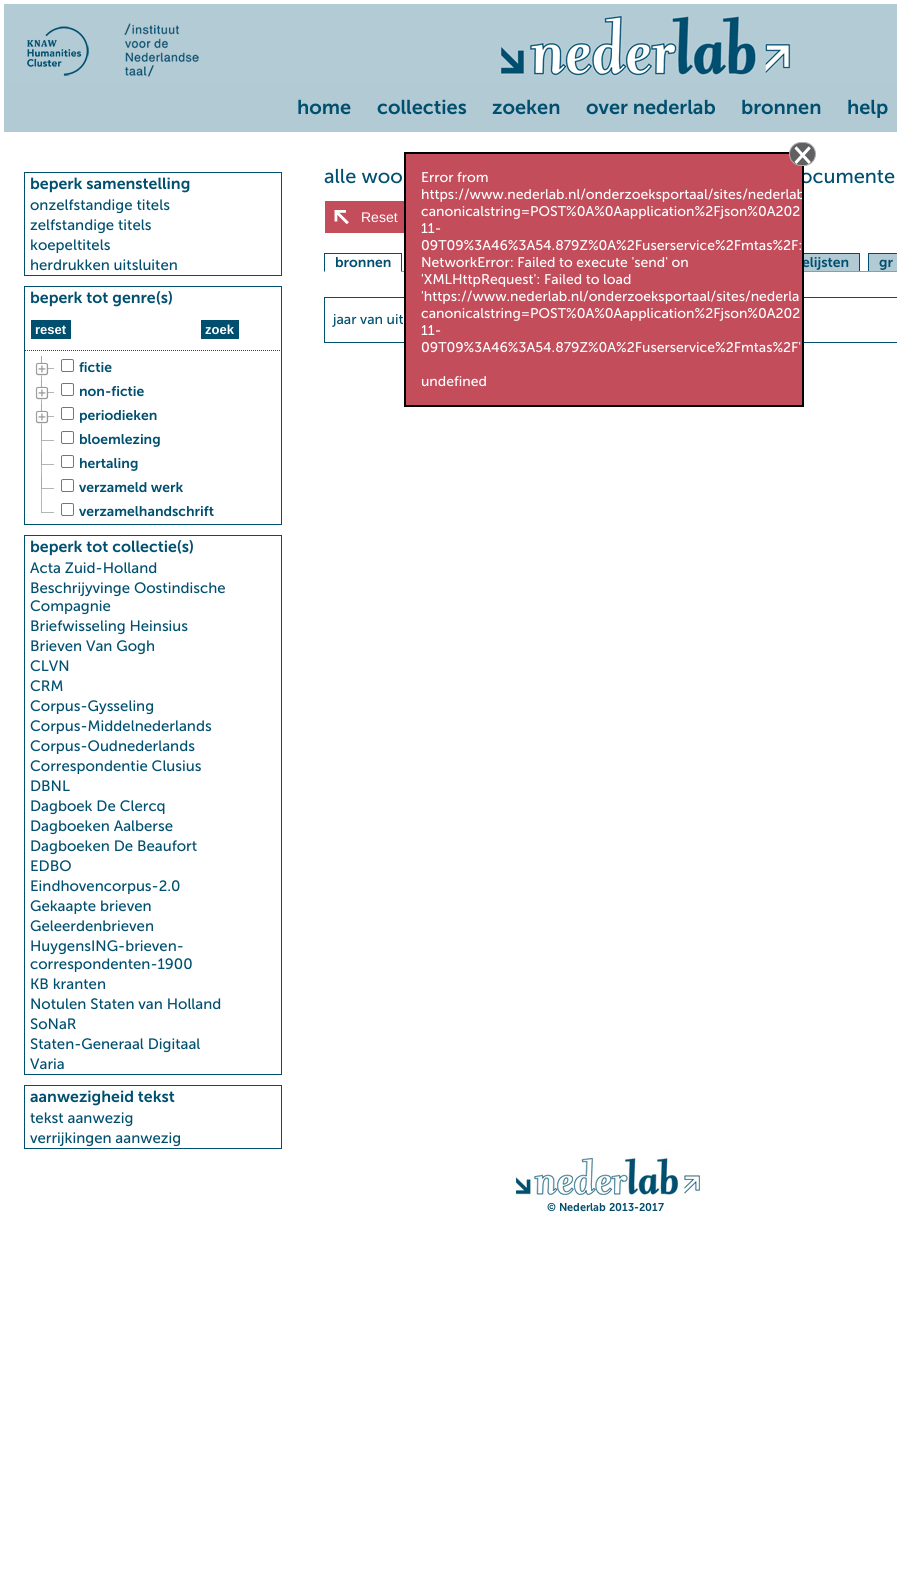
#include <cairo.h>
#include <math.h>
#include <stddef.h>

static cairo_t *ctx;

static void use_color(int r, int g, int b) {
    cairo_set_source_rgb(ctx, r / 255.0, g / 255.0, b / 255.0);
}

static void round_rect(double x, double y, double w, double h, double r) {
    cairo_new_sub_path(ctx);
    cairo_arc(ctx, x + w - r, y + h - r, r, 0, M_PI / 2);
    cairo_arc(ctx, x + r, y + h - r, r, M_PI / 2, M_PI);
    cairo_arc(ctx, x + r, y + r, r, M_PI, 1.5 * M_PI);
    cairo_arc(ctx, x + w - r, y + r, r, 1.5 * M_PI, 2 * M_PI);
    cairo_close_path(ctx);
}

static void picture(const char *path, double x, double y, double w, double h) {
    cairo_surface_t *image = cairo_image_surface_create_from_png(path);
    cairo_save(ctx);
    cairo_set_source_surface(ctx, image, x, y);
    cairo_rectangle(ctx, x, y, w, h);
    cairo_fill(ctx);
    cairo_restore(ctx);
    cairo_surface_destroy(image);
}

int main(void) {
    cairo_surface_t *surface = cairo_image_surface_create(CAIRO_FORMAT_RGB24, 897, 1583);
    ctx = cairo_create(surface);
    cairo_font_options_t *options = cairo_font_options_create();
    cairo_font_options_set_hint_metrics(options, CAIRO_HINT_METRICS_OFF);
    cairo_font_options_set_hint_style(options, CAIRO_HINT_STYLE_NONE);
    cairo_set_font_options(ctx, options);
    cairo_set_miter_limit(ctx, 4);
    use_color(255, 255, 255);
    cairo_paint(ctx);
    picture("img1.png", 4, 4, 893, 80);
    picture("img2.png", 27, 26, 62, 50);
    picture("img3.png", 124, 23, 75, 54);
    use_color(178, 202, 212);
    cairo_rectangle(ctx, 4, 84, 893, 48);
    cairo_fill(ctx);
    cairo_select_font_face(ctx, "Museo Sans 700 SemiBold", CAIRO_FONT_SLANT_NORMAL, CAIRO_FONT_WEIGHT_NORMAL);
    cairo_set_font_size(ctx, 20);
    use_color(0, 79, 111);
    cairo_move_to(ctx, 297, 114);
    cairo_show_text(ctx, "home");
    cairo_move_to(ctx, 377, 114);
    cairo_show_text(ctx, "collecties");
    cairo_move_to(ctx, 492, 114);
    cairo_show_text(ctx, "zoeken");
    cairo_move_to(ctx, 586, 114);
    cairo_show_text(ctx, "over nederlab");
    cairo_move_to(ctx, 741, 114);
    cairo_show_text(ctx, "bronnen");
    cairo_move_to(ctx, 847, 114);
    cairo_show_text(ctx, "help");
    cairo_select_font_face(ctx, "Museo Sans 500", CAIRO_FONT_SLANT_NORMAL, CAIRO_FONT_WEIGHT_NORMAL);
    cairo_move_to(ctx, 800, 183);
    cairo_show_text(ctx, "ocumente");
    use_color(153, 153, 153);
    cairo_rectangle(ctx, 324, 271, 573, 1);
    cairo_fill(ctx);
    use_color(178, 202, 212);
    cairo_rectangle(ctx, 804, 254, 55, 17);
    cairo_fill(ctx);
    cairo_select_font_face(ctx, "Museo Sans 700 SemiBold", CAIRO_FONT_SLANT_NORMAL, CAIRO_FONT_WEIGHT_NORMAL);
    cairo_set_font_size(ctx, 14);
    use_color(0, 79, 111);
    cairo_move_to(ctx, 802, 267);
    cairo_show_text(ctx, "elijsten");
    cairo_rectangle(ctx, 324.5, 297.5, 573, 45);
    cairo_set_line_width(ctx, 1);
    cairo_stroke(ctx);
    use_color(195, 77, 91);
    cairo_rectangle(ctx, 405, 153, 398, 253);
    cairo_fill_preserve(ctx);
    use_color(0, 0, 0);
    cairo_set_line_width(ctx, 2);
    cairo_stroke(ctx);
    use_color(96, 95, 97);
    round_rect(789.5, 142.5, 26, 23, 11.5);
    cairo_fill_preserve(ctx);
    use_color(174, 174, 174);
    cairo_set_line_width(ctx, 1);
    cairo_stroke(ctx);
    cairo_set_font_size(ctx, 31);
    use_color(255, 255, 255);
    cairo_move_to(ctx, 793, 164);
    cairo_show_text(ctx, "×");
    cairo_select_font_face(ctx, "Museo Sans 500", CAIRO_FONT_SLANT_NORMAL, CAIRO_FONT_WEIGHT_NORMAL);
    cairo_set_font_size(ctx, 14);
    cairo_move_to(ctx, 421, 182);
    cairo_show_text(ctx, "Error from");
    cairo_save(ctx);
    cairo_rectangle(ctx, 406, 154, 396, 251);
    cairo_clip(ctx);
    cairo_move_to(ctx, 421, 199);
    cairo_show_text(ctx, "https://www.nederlab.nl/onderzoeksportaal/sites/nederlab");
    cairo_restore(ctx);
    cairo_move_to(ctx, 421, 216);
    cairo_show_text(ctx, "canonicalstring=POST%0A%0Aapplication%2Fjson%0A202");
    cairo_move_to(ctx, 421, 233);
    cairo_show_text(ctx, "11-");
    cairo_move_to(ctx, 421, 250);
    cairo_show_text(ctx, "09T09%3A46%3A54.879Z%0A%2Fuserservice%2Fmtas%2F:");
    cairo_move_to(ctx, 421, 267);
    cairo_show_text(ctx, "NetworkError: Failed to execute 'send' on");
    cairo_move_to(ctx, 421, 284);
    cairo_show_text(ctx, "'XMLHttpRequest': Failed to load");
    cairo_move_to(ctx, 421, 301);
    cairo_show_text(ctx, "'https://www.nederlab.nl/onderzoeksportaal/sites/nederla");
    cairo_move_to(ctx, 421, 318);
    cairo_show_text(ctx, "canonicalstring=POST%0A%0Aapplication%2Fjson%0A202");
    cairo_move_to(ctx, 421, 335);
    cairo_show_text(ctx, "11-");
    cairo_move_to(ctx, 421, 352);
    cairo_show_text(ctx, "09T09%3A46%3A54.879Z%0A%2Fuserservice%2Fmtas%2F'");
    cairo_move_to(ctx, 421, 386);
    cairo_show_text(ctx, "undefined");
    cairo_rectangle(ctx, 24.5, 172.5, 257, 103);
    use_color(0, 79, 111);
    cairo_stroke(ctx);
    cairo_select_font_face(ctx, "Museo Sans 700 SemiBold", CAIRO_FONT_SLANT_NORMAL, CAIRO_FONT_WEIGHT_NORMAL);
    cairo_set_font_size(ctx, 16);
    cairo_move_to(ctx, 30, 189);
    cairo_show_text(ctx, "beperk samenstelling");
    cairo_select_font_face(ctx, "Museo Sans 500", CAIRO_FONT_SLANT_NORMAL, CAIRO_FONT_WEIGHT_NORMAL);
    cairo_set_font_size(ctx, 15);
    cairo_move_to(ctx, 30, 210);
    cairo_show_text(ctx, "onzelfstandige titels");
    cairo_move_to(ctx, 30, 230);
    cairo_show_text(ctx, "zelfstandige titels");
    cairo_move_to(ctx, 30, 250);
    cairo_show_text(ctx, "koepeltitels");
    cairo_move_to(ctx, 30, 270);
    cairo_show_text(ctx, "herdrukken uitsluiten");
    cairo_rectangle(ctx, 24.5, 286.5, 257, 238);
    cairo_stroke(ctx);
    cairo_select_font_face(ctx, "Museo Sans 700 SemiBold", CAIRO_FONT_SLANT_NORMAL, CAIRO_FONT_WEIGHT_NORMAL);
    cairo_set_font_size(ctx, 16);
    cairo_move_to(ctx, 30, 303);
    cairo_show_text(ctx, "beperk tot genre(s)");
    cairo_rectangle(ctx, 31, 320, 40, 19);
    cairo_fill(ctx);
    cairo_select_font_face(ctx, "Liberation Sans", CAIRO_FONT_SLANT_NORMAL, CAIRO_FONT_WEIGHT_BOLD);
    cairo_set_font_size(ctx, 13);
    use_color(255, 255, 255);
    cairo_move_to(ctx, 35, 334);
    cairo_show_text(ctx, "reset");
    use_color(0, 79, 111);
    cairo_rectangle(ctx, 201, 320, 38, 19);
    cairo_fill(ctx);
    use_color(255, 255, 255);
    cairo_move_to(ctx, 205, 334);
    cairo_show_text(ctx, "zoek");
    cairo_new_path(ctx);
    cairo_move_to(ctx, 25, 350.5);
    cairo_line_to(ctx, 281, 350.5);
    use_color(0, 79, 111);
    cairo_set_dash(ctx, (double[]){1, 1}, 2, 0);
    cairo_stroke(ctx);
    use_color(184, 184, 184);
    cairo_rectangle(ctx, 41, 356, 1, 144);
    cairo_fill(ctx);
    picture("img4.png", 35, 356, 19, 20);
    round_rect(61.5, 359.5, 12, 12, 1.5);
    use_color(118, 118, 118);
    cairo_set_dash(ctx, NULL, 0, 0);
    cairo_stroke(ctx);
    cairo_select_font_face(ctx, "Museo Sans 700 SemiBold", CAIRO_FONT_SLANT_NORMAL, CAIRO_FONT_WEIGHT_NORMAL);
    cairo_set_font_size(ctx, 14);
    use_color(0, 79, 111);
    cairo_move_to(ctx, 79, 372);
    cairo_show_text(ctx, "fictie");
    picture("img4.png", 35, 380, 19, 20);
    round_rect(61.5, 383.5, 12, 12, 1.5);
    use_color(118, 118, 118);
    cairo_stroke(ctx);
    use_color(0, 79, 111);
    cairo_move_to(ctx, 79, 396);
    cairo_show_text(ctx, "non-fictie");
    picture("img4.png", 35, 404, 19, 20);
    round_rect(61.5, 407.5, 12, 12, 1.5);
    use_color(118, 118, 118);
    cairo_stroke(ctx);
    use_color(0, 79, 111);
    cairo_move_to(ctx, 79, 420);
    cairo_show_text(ctx, "periodieken");
    picture("img5.png", 41, 428, 13, 14);
    round_rect(61.5, 431.5, 12, 12, 1.5);
    use_color(118, 118, 118);
    cairo_stroke(ctx);
    use_color(0, 79, 111);
    cairo_move_to(ctx, 79, 444);
    cairo_show_text(ctx, "bloemlezing");
    picture("img5.png", 41, 452, 13, 14);
    round_rect(61.5, 455.5, 12, 12, 1.5);
    use_color(118, 118, 118);
    cairo_stroke(ctx);
    use_color(0, 79, 111);
    cairo_move_to(ctx, 79, 468);
    cairo_show_text(ctx, "hertaling");
    picture("img5.png", 41, 476, 13, 14);
    round_rect(61.5, 479.5, 12, 12, 1.5);
    use_color(118, 118, 118);
    cairo_stroke(ctx);
    use_color(0, 79, 111);
    cairo_move_to(ctx, 79, 492);
    cairo_show_text(ctx, "verzameld werk");
    picture("img6.png", 41, 500, 13, 13);
    round_rect(61.5, 503.5, 12, 12, 1.5);
    use_color(118, 118, 118);
    cairo_stroke(ctx);
    use_color(0, 79, 111);
    cairo_move_to(ctx, 79, 516);
    cairo_show_text(ctx, "verzamelhandschrift");
    cairo_rectangle(ctx, 24.5, 535.5, 257, 539);
    cairo_stroke(ctx);
    cairo_set_font_size(ctx, 16);
    cairo_move_to(ctx, 30, 552);
    cairo_show_text(ctx, "beperk tot collectie(s)");
    cairo_select_font_face(ctx, "Museo Sans 500", CAIRO_FONT_SLANT_NORMAL, CAIRO_FONT_WEIGHT_NORMAL);
    cairo_set_font_size(ctx, 15);
    cairo_move_to(ctx, 30, 573);
    cairo_show_text(ctx, "Acta Zuid-Holland");
    cairo_move_to(ctx, 30, 593);
    cairo_show_text(ctx, "Beschrijyvinge Oostindische");
    cairo_move_to(ctx, 30, 611);
    cairo_show_text(ctx, "Compagnie");
    cairo_move_to(ctx, 30, 631);
    cairo_show_text(ctx, "Briefwisseling Heinsius");
    cairo_move_to(ctx, 30, 651);
    cairo_show_text(ctx, "Brieven Van Gogh");
    cairo_move_to(ctx, 30, 671);
    cairo_show_text(ctx, "CLVN");
    cairo_move_to(ctx, 30, 691);
    cairo_show_text(ctx, "CRM");
    cairo_move_to(ctx, 30, 711);
    cairo_show_text(ctx, "Corpus-Gysseling");
    cairo_move_to(ctx, 30, 731);
    cairo_show_text(ctx, "Corpus-Middelnederlands");
    cairo_move_to(ctx, 30, 751);
    cairo_show_text(ctx, "Corpus-Oudnederlands");
    cairo_move_to(ctx, 30, 771);
    cairo_show_text(ctx, "Correspondentie Clusius");
    cairo_move_to(ctx, 30, 791);
    cairo_show_text(ctx, "DBNL");
    cairo_move_to(ctx, 30, 811);
    cairo_show_text(ctx, "Dagboek De Clercq");
    cairo_move_to(ctx, 30, 831);
    cairo_show_text(ctx, "Dagboeken Aalberse");
    cairo_move_to(ctx, 30, 851);
    cairo_show_text(ctx, "Dagboeken De Beaufort");
    cairo_move_to(ctx, 30, 871);
    cairo_show_text(ctx, "EDBO");
    cairo_move_to(ctx, 30, 891);
    cairo_show_text(ctx, "Eindhovencorpus-2.0");
    cairo_move_to(ctx, 30, 911);
    cairo_show_text(ctx, "Gekaapte brieven");
    cairo_move_to(ctx, 30, 931);
    cairo_show_text(ctx, "Geleerdenbrieven");
    cairo_move_to(ctx, 30, 951);
    cairo_show_text(ctx, "HuygensING-brieven-");
    cairo_move_to(ctx, 30, 969);
    cairo_show_text(ctx, "correspondenten-1900");
    cairo_move_to(ctx, 30, 989);
    cairo_show_text(ctx, "KB kranten");
    cairo_move_to(ctx, 30, 1009);
    cairo_show_text(ctx, "Notulen Staten van Holland");
    cairo_move_to(ctx, 30, 1029);
    cairo_show_text(ctx, "SoNaR");
    cairo_move_to(ctx, 30, 1049);
    cairo_show_text(ctx, "Staten-Generaal Digitaal");
    cairo_move_to(ctx, 30, 1069);
    cairo_show_text(ctx, "Varia");
    cairo_rectangle(ctx, 24.5, 1085.5, 257, 63);
    cairo_stroke(ctx);
    cairo_select_font_face(ctx, "Museo Sans 700 SemiBold", CAIRO_FONT_SLANT_NORMAL, CAIRO_FONT_WEIGHT_NORMAL);
    cairo_set_font_size(ctx, 16);
    cairo_move_to(ctx, 30, 1102);
    cairo_show_text(ctx, "aanwezigheid tekst");
    cairo_select_font_face(ctx, "Museo Sans 500", CAIRO_FONT_SLANT_NORMAL, CAIRO_FONT_WEIGHT_NORMAL);
    cairo_set_font_size(ctx, 15);
    cairo_move_to(ctx, 30, 1123);
    cairo_show_text(ctx, "tekst aanwezig");
    cairo_move_to(ctx, 30, 1143);
    cairo_show_text(ctx, "verrijkingen aanwezig");
    cairo_set_font_size(ctx, 20);
    cairo_move_to(ctx, 324, 183);
    cairo_show_text(ctx, "alle woo");
    use_color(195, 77, 91);
    cairo_rectangle(ctx, 325, 201, 79, 32);
    cairo_fill(ctx);
    picture("img7.png", 334, 210, 15, 14);
    cairo_select_font_face(ctx, "Liberation Sans", CAIRO_FONT_SLANT_NORMAL, CAIRO_FONT_WEIGHT_NORMAL);
    cairo_set_font_size(ctx, 14);
    use_color(255, 255, 255);
    cairo_move_to(ctx, 361, 222);
    cairo_show_text(ctx, "Reset");
    cairo_select_font_face(ctx, "Museo Sans 700 SemiBold", CAIRO_FONT_SLANT_NORMAL, CAIRO_FONT_WEIGHT_NORMAL);
    use_color(0, 79, 111);
    cairo_move_to(ctx, 335, 267);
    cairo_show_text(ctx, "bronnen");
    cairo_rectangle(ctx, 324, 253, 78, 1);
    cairo_fill(ctx);
    cairo_rectangle(ctx, 401, 253, 1, 18);
    cairo_fill(ctx);
    cairo_rectangle(ctx, 324, 253, 1, 18);
    cairo_fill(ctx);
    use_color(255, 255, 255);
    cairo_rectangle(ctx, 325, 271, 76, 1);
    cairo_fill(ctx);
    use_color(0, 79, 111);
    cairo_rectangle(ctx, 804, 253, 56, 1);
    cairo_fill(ctx);
    cairo_rectangle(ctx, 859, 253, 1, 18);
    cairo_fill(ctx);
    use_color(178, 202, 212);
    cairo_rectangle(ctx, 869, 254, 28, 17);
    cairo_fill(ctx);
    use_color(0, 79, 111);
    cairo_move_to(ctx, 879, 267);
    cairo_show_text(ctx, "gr");
    cairo_rectangle(ctx, 868, 253, 29, 1);
    cairo_fill(ctx);
    cairo_rectangle(ctx, 868, 253, 1, 18);
    cairo_fill(ctx);
    cairo_select_font_face(ctx, "Museo Sans 500", CAIRO_FONT_SLANT_NORMAL, CAIRO_FONT_WEIGHT_NORMAL);
    cairo_move_to(ctx, 333, 324);
    cairo_show_text(ctx, "jaar van uit");
    picture("img8.png", 512, 1151, 192, 64);
    cairo_surface_write_to_png(surface, "result.png");
    cairo_font_options_destroy(options);
    cairo_destroy(ctx);
    cairo_surface_destroy(surface);
    return 0;
}
